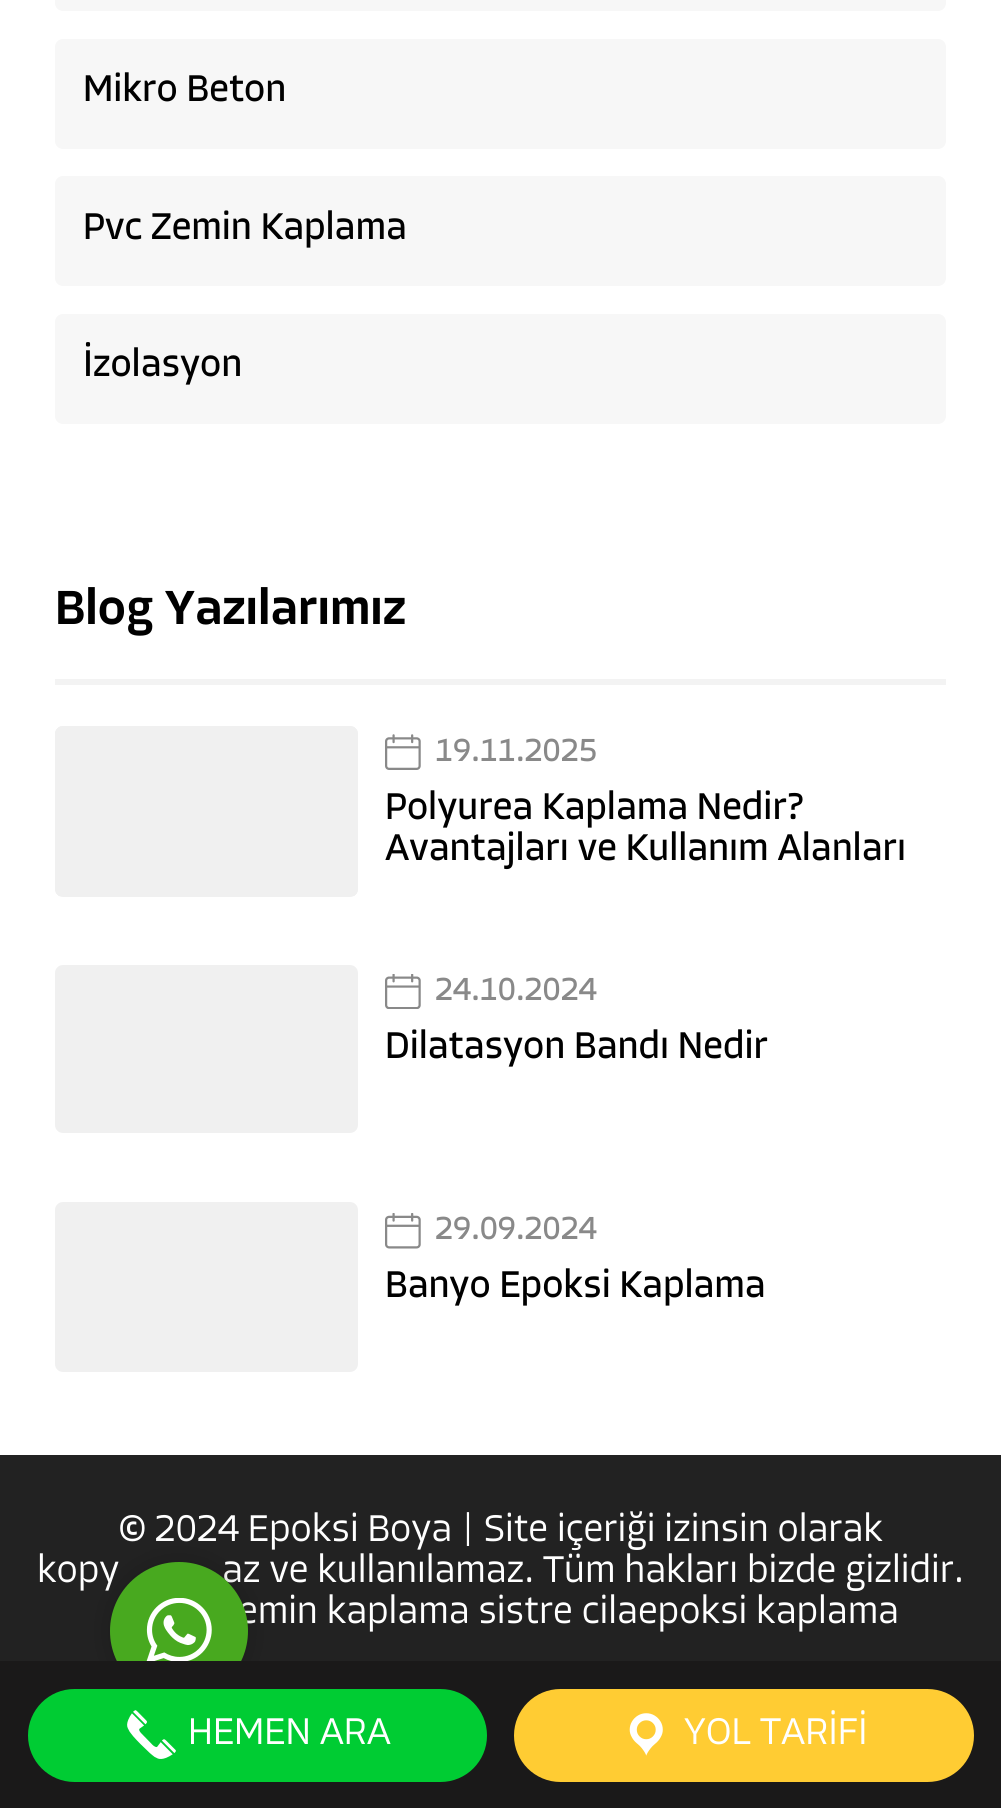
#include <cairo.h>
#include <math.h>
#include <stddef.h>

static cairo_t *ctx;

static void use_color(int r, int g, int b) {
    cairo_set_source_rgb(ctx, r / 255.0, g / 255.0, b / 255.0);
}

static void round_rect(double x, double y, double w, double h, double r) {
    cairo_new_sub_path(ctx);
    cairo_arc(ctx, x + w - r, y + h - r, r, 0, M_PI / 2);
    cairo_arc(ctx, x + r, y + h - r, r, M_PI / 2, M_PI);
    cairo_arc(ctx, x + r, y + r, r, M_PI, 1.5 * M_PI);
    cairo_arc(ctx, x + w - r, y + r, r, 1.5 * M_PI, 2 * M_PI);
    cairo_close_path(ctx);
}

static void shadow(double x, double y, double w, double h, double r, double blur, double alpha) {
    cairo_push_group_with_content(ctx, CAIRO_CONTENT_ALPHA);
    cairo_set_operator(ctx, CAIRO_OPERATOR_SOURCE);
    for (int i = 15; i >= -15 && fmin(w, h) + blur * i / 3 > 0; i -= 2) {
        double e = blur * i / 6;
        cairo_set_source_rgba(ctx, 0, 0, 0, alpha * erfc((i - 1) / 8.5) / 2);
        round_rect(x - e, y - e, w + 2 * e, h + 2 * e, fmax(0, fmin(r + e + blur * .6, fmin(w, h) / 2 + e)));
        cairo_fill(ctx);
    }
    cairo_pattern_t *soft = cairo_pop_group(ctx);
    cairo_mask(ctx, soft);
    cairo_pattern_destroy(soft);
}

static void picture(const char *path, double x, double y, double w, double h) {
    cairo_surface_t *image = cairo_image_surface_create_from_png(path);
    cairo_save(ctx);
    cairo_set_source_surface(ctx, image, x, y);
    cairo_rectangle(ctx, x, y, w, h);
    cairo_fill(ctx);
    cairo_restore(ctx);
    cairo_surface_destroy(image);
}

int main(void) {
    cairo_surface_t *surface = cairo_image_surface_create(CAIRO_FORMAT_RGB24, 1001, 1808);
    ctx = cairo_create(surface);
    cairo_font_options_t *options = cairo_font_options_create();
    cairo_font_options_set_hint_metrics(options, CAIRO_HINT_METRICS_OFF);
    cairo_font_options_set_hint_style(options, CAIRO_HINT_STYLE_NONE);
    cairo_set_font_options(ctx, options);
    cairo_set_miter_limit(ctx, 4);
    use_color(255, 255, 255);
    cairo_paint(ctx);
    use_color(247, 247, 247);
    round_rect(55, -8, 891, 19, 8);
    cairo_fill(ctx);
    round_rect(55, 39, 891, 110, 8);
    cairo_fill(ctx);
    cairo_select_font_face(ctx, "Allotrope", CAIRO_FONT_SLANT_NORMAL, CAIRO_FONT_WEIGHT_NORMAL);
    cairo_set_font_size(ctx, 38.5);
    use_color(0, 0, 0);
    cairo_move_to(ctx, 83, 101);
    cairo_show_text(ctx, "Mikro Beton");
    use_color(247, 247, 247);
    round_rect(55, 176, 891, 110, 8);
    cairo_fill(ctx);
    use_color(0, 0, 0);
    cairo_move_to(ctx, 83, 239);
    cairo_show_text(ctx, "Pvc Zemin Kaplama");
    use_color(247, 247, 247);
    round_rect(55, 314, 891, 110, 8);
    cairo_fill(ctx);
    use_color(0, 0, 0);
    cairo_move_to(ctx, 83, 376);
    cairo_show_text(ctx, "İzolasyon");
    use_color(243, 243, 243);
    cairo_rectangle(ctx, 55, 679, 891, 6);
    cairo_fill(ctx);
    cairo_select_font_face(ctx, "Allotrope Medium", CAIRO_FONT_SLANT_NORMAL, CAIRO_FONT_WEIGHT_NORMAL);
    cairo_set_font_size(ctx, 49.5);
    use_color(0, 0, 0);
    cairo_move_to(ctx, 55, 624);
    cairo_show_text(ctx, "Blog Yazılarımız");
    use_color(240, 240, 240);
    round_rect(55, 726, 303, 171, 8);
    cairo_fill(ctx);
    cairo_save(ctx);
    round_rect(55, 726, 303, 171, 8);
    cairo_clip(ctx);
    cairo_new_path(ctx);
    cairo_move_to(ctx, 63, 726);
    cairo_line_to(ctx, 350, 726);
    cairo_curve_to(ctx, 354.5, 726, 358, 729.5, 358, 734);
    cairo_line_to(ctx, 358, 896);
    cairo_line_to(ctx, 55, 896);
    cairo_line_to(ctx, 55, 734);
    cairo_curve_to(ctx, 55, 729.5, 58.5, 726, 63, 726);
    cairo_close_path(ctx);
    cairo_fill(ctx);
    cairo_restore(ctx);
    picture("img1.png", 385, 734, 36, 36);
    cairo_select_font_face(ctx, "Allotrope", CAIRO_FONT_SLANT_NORMAL, CAIRO_FONT_WEIGHT_NORMAL);
    cairo_set_font_size(ctx, 33);
    use_color(137, 137, 137);
    cairo_move_to(ctx, 435, 761);
    cairo_show_text(ctx, "19.11.2025");
    cairo_set_font_size(ctx, 38.5);
    use_color(0, 0, 0);
    cairo_move_to(ctx, 385, 819);
    cairo_show_text(ctx, "Polyurea Kaplama Nedir?");
    cairo_move_to(ctx, 385, 860);
    cairo_show_text(ctx, "Avantajları ve Kullanım Alanları");
    use_color(240, 240, 240);
    round_rect(55, 965, 303, 168, 8);
    cairo_fill(ctx);
    picture("img2.png", 385, 974, 36, 35);
    cairo_set_font_size(ctx, 33);
    use_color(137, 137, 137);
    cairo_move_to(ctx, 435, 1000);
    cairo_show_text(ctx, "24.10.2024");
    cairo_set_font_size(ctx, 38.5);
    use_color(0, 0, 0);
    cairo_move_to(ctx, 385, 1058);
    cairo_show_text(ctx, "Dilatasyon Bandı Nedir");
    use_color(240, 240, 240);
    round_rect(55, 1202, 303, 170, 8);
    cairo_fill(ctx);
    picture("img3.png", 385, 1213, 36, 36);
    cairo_set_font_size(ctx, 33);
    use_color(137, 137, 137);
    cairo_move_to(ctx, 435, 1239);
    cairo_show_text(ctx, "29.09.2024");
    cairo_set_font_size(ctx, 38.5);
    use_color(0, 0, 0);
    cairo_move_to(ctx, 385, 1297);
    cairo_show_text(ctx, "Banyo Epoksi Kaplama");
    use_color(34, 34, 34);
    cairo_rectangle(ctx, 0, 1455, 1001, 206);
    cairo_fill(ctx);
    cairo_select_font_face(ctx, "Allotrope Light", CAIRO_FONT_SLANT_NORMAL, CAIRO_FONT_WEIGHT_NORMAL);
    use_color(255, 255, 255);
    cairo_move_to(ctx, 119, 1541);
    cairo_show_text(ctx, "© 2024 Epoksi Boya | Site içeriği izinsin olarak");
    cairo_move_to(ctx, 37, 1582);
    cairo_show_text(ctx, "kopy");
    cairo_move_to(ctx, 222, 1582);
    cairo_show_text(ctx, "az ve kullanılamaz. Tüm hakları bizde gizlidir.");
    cairo_move_to(ctx, 238, 1623);
    cairo_show_text(ctx, "emin kaplama sistre cilaepoksi kaplama");
    use_color(0, 0, 0);
    shadow(110, 1562, 138, 138, 69, 11, 0.2);
    use_color(72, 169, 31);
    cairo_arc(ctx, 179, 1631, 69, 0, 2 * M_PI);
    cairo_fill(ctx);
    picture("img4.png", 146, 1598, 66, 63);
    use_color(26, 25, 25);
    cairo_rectangle(ctx, 0, 1661, 1001, 147);
    cairo_fill(ctx);
    use_color(0, 204, 51);
    round_rect(28, 1689, 459, 93, 46.5);
    cairo_fill(ctx);
    picture("img5.png", 127, 1710, 49, 49);
    use_color(255, 255, 255);
    cairo_move_to(ctx, 188, 1744);
    cairo_show_text(ctx, "HEMEN ARA");
    use_color(255, 204, 51);
    round_rect(514, 1689, 460, 93, 46.5);
    cairo_fill(ctx);
    picture("img6.png", 629, 1713, 34, 43);
    use_color(255, 255, 255);
    cairo_move_to(ctx, 684, 1744);
    cairo_show_text(ctx, "YOL TARİFİ");
    cairo_surface_write_to_png(surface, "result.png");
    cairo_font_options_destroy(options);
    cairo_destroy(ctx);
    cairo_surface_destroy(surface);
    return 0;
}
